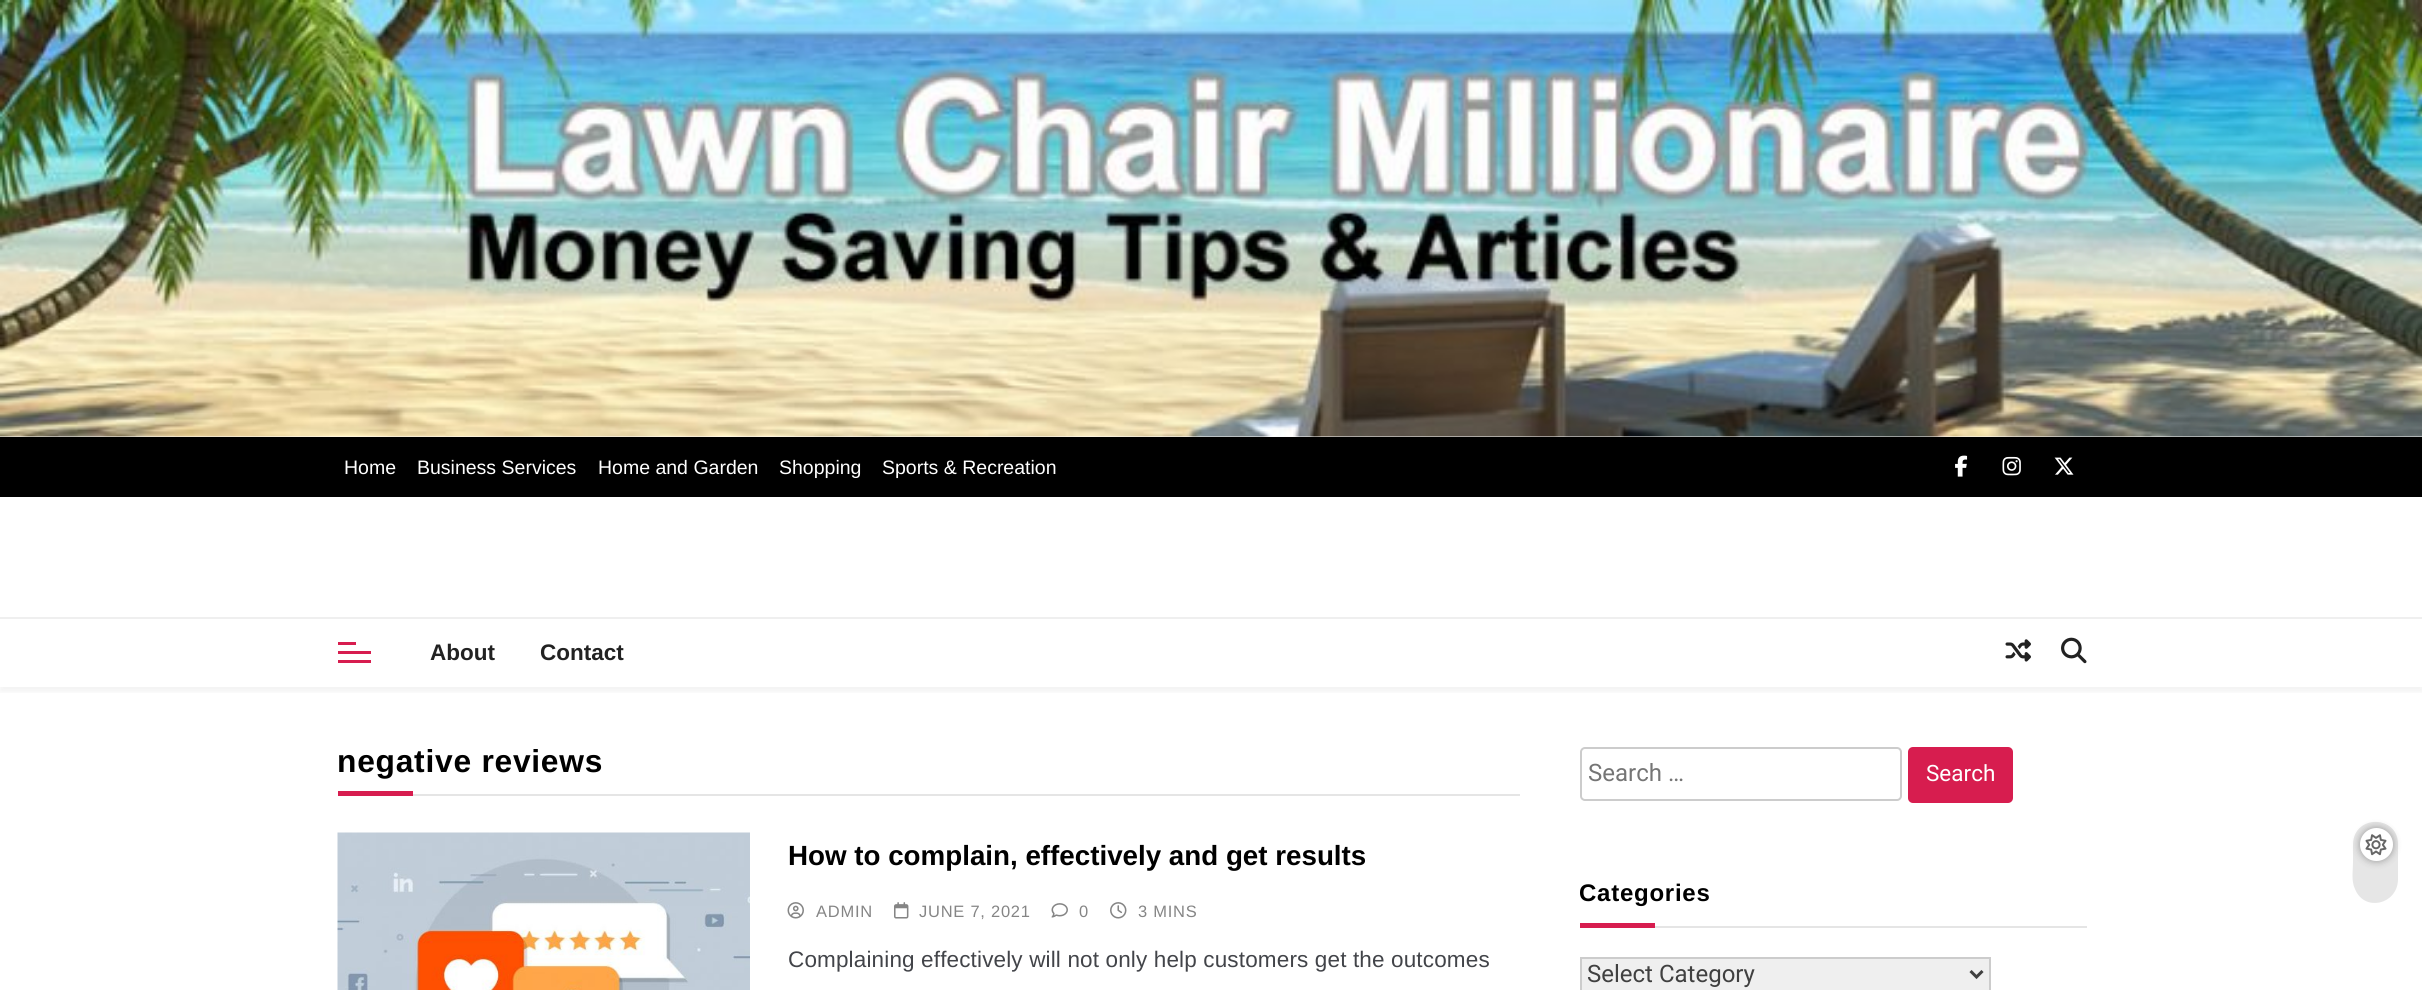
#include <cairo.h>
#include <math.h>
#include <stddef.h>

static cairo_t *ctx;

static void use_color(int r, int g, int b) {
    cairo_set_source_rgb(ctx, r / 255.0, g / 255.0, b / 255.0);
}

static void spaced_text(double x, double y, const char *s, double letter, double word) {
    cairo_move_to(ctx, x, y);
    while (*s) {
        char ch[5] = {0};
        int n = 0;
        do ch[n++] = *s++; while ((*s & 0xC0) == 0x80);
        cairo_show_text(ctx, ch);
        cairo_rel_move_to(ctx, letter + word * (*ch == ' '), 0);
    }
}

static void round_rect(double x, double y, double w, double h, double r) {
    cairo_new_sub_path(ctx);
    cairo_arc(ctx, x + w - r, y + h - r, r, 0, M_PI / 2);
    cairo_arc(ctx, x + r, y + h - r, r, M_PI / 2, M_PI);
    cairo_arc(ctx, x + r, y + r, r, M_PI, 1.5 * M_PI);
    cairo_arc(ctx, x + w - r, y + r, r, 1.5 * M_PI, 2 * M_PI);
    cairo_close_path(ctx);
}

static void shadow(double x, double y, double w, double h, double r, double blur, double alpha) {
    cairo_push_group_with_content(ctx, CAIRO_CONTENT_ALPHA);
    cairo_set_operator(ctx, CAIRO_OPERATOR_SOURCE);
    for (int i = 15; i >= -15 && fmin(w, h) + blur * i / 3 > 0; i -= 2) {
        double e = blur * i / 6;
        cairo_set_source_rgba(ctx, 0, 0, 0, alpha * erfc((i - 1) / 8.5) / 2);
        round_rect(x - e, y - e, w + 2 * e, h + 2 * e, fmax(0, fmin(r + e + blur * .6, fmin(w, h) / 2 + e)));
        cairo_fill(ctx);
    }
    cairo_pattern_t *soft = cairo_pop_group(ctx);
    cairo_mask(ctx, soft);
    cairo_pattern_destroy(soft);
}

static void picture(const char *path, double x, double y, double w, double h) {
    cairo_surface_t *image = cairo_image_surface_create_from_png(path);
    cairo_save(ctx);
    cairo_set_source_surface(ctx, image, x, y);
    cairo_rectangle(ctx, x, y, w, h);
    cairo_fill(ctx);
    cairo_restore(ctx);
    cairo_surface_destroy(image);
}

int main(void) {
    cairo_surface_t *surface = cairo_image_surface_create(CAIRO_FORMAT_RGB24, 2422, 990);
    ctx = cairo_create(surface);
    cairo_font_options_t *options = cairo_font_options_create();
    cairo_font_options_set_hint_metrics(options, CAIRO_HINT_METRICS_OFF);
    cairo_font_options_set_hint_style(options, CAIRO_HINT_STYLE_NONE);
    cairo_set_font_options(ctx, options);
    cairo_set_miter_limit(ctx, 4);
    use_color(255, 255, 255);
    cairo_paint(ctx);
    picture("img1.png", 0, 0, 2422, 437);
    use_color(0, 0, 0);
    cairo_rectangle(ctx, 0, 437, 2422, 60);
    cairo_fill(ctx);
    cairo_select_font_face(ctx, "Liberation Sans", CAIRO_FONT_SLANT_NORMAL, CAIRO_FONT_WEIGHT_NORMAL);
    cairo_set_font_size(ctx, 19.5);
    use_color(255, 255, 255);
    cairo_move_to(ctx, 344, 474);
    cairo_show_text(ctx, "Home");
    cairo_move_to(ctx, 417, 474);
    cairo_show_text(ctx, "Business Services");
    cairo_move_to(ctx, 598, 474);
    cairo_show_text(ctx, "Home and Garden");
    cairo_move_to(ctx, 779, 474);
    cairo_show_text(ctx, "Shopping");
    cairo_move_to(ctx, 882, 474);
    cairo_show_text(ctx, "Sports & Recreation");
    picture("img2.png", 1955, 455, 13, 22);
    picture("img3.png", 2002, 456, 19, 20);
    picture("img4.png", 2054, 457, 20, 18);
    cairo_save(ctx);
    cairo_rectangle(ctx, 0, 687, 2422, 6);
    cairo_clip(ctx);
    use_color(0, 0, 0);
    shadow(0, 501, 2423, 191, 0, 3, 0.05);
    cairo_restore(ctx);
    use_color(239, 239, 239);
    cairo_rectangle(ctx, 0, 617, 2422, 2);
    cairo_fill(ctx);
    use_color(215, 29, 79);
    cairo_rectangle(ctx, 338, 642, 18, 3);
    cairo_fill(ctx);
    cairo_rectangle(ctx, 338, 651, 33, 3);
    cairo_fill(ctx);
    cairo_rectangle(ctx, 338, 660, 33, 3);
    cairo_fill(ctx);
    cairo_select_font_face(ctx, "Liberation Sans", CAIRO_FONT_SLANT_NORMAL, CAIRO_FONT_WEIGHT_BOLD);
    cairo_set_font_size(ctx, 22.5);
    use_color(34, 34, 34);
    cairo_move_to(ctx, 430, 660);
    cairo_show_text(ctx, "About");
    cairo_move_to(ctx, 540, 660);
    cairo_show_text(ctx, "Contact");
    picture("img5.png", 2005, 639, 26, 23);
    picture("img6.png", 2061, 637, 26, 27);
    use_color(229, 229, 229);
    cairo_rectangle(ctx, 413, 794, 1107, 2);
    cairo_fill(ctx);
    cairo_set_font_size(ctx, 31.75);
    use_color(0, 0, 0);
    spaced_text(337, 772, "negative reviews", 0.75, 0);
    use_color(215, 29, 79);
    cairo_rectangle(ctx, 338, 791, 75, 5);
    cairo_fill(ctx);
    picture("img7.png", 337, 832, 413, 158);
    cairo_set_font_size(ctx, 27.75);
    use_color(0, 0, 0);
    cairo_move_to(ctx, 788, 865);
    cairo_show_text(ctx, "How to complain, effectively and get results");
    picture("img8.png", 787, 902, 17, 17);
    cairo_select_font_face(ctx, "Liberation Sans", CAIRO_FONT_SLANT_NORMAL, CAIRO_FONT_WEIGHT_NORMAL);
    cairo_set_font_size(ctx, 16.5);
    use_color(133, 133, 133);
    spaced_text(816, 917, "ADMIN", 0.75, 0);
    picture("img9.png", 894, 902, 15, 17);
    spaced_text(919, 917, "JUNE 7, 2021", 0.75, 0);
    picture("img10.png", 1051, 903, 17, 15);
    spaced_text(1079, 917, "0", 0.75, 0);
    picture("img11.png", 1110, 902, 17, 17);
    spaced_text(1138, 917, "3 MINS", 0.75, 0);
    cairo_set_font_size(ctx, 22.5);
    use_color(66, 68, 73);
    spaced_text(788, 967, "Complaining effectively will not only help customers get the outcomes", 0.15, 0);
    round_rect(1581, 748, 320, 52, 4);
    use_color(204, 204, 204);
    cairo_stroke(ctx);
    cairo_select_font_face(ctx, "Roboto", CAIRO_FONT_SLANT_NORMAL, CAIRO_FONT_WEIGHT_NORMAL);
    cairo_set_font_size(ctx, 24);
    use_color(117, 117, 117);
    cairo_move_to(ctx, 1588, 781);
    cairo_show_text(ctx, "Search …");
    use_color(215, 29, 79);
    round_rect(1908, 747, 105, 56, 5);
    cairo_fill(ctx);
    cairo_set_font_size(ctx, 22.5);
    use_color(255, 255, 255);
    cairo_move_to(ctx, 1926, 781);
    cairo_show_text(ctx, "Search");
    use_color(229, 229, 229);
    cairo_rectangle(ctx, 1655, 926, 432, 2);
    cairo_fill(ctx);
    cairo_select_font_face(ctx, "Liberation Sans", CAIRO_FONT_SLANT_NORMAL, CAIRO_FONT_WEIGHT_BOLD);
    cairo_set_font_size(ctx, 24);
    use_color(0, 0, 0);
    spaced_text(1579, 901, "Categories", 0.75, 0);
    use_color(215, 29, 79);
    cairo_rectangle(ctx, 1580, 923, 75, 5);
    cairo_fill(ctx);
    use_color(239, 239, 239);
    cairo_rectangle(ctx, 1581, 958, 409, 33);
    cairo_fill_preserve(ctx);
    use_color(204, 204, 204);
    cairo_stroke(ctx);
    cairo_new_path(ctx);
    cairo_move_to(ctx, 1970.5, 971);
    cairo_line_to(ctx, 1976.5, 977);
    cairo_line_to(ctx, 1982.5, 971);
    use_color(64, 64, 64);
    cairo_set_line_width(ctx, 3);
    cairo_stroke(ctx);
    cairo_select_font_face(ctx, "Roboto", CAIRO_FONT_SLANT_NORMAL, CAIRO_FONT_WEIGHT_NORMAL);
    cairo_move_to(ctx, 1587, 982);
    cairo_show_text(ctx, "Select Category");
    use_color(230, 230, 230);
    cairo_new_path(ctx);
    cairo_move_to(ctx, 2398, 844);
    cairo_line_to(ctx, 2398, 880);
    cairo_curve_to(ctx, 2397, 905, 2364, 912, 2355, 889);
    cairo_curve_to(ctx, 2351, 881, 2353, 870, 2353, 862);
    cairo_line_to(ctx, 2353, 844);
    cairo_curve_to(ctx, 2354, 814, 2398, 815, 2398, 844);
    cairo_close_path(ctx);
    cairo_fill(ctx);
    use_color(0, 0, 0);
    shadow(2360, 828, 33, 33, 16.5, 4, 0.35);
    use_color(255, 255, 255);
    cairo_arc(ctx, 2376.5, 844.5, 16.5, 0, 2 * M_PI);
    cairo_fill(ctx);
    picture("img12.png", 2365, 834, 22, 22);
    cairo_surface_write_to_png(surface, "result.png");
    cairo_font_options_destroy(options);
    cairo_destroy(ctx);
    cairo_surface_destroy(surface);
    return 0;
}
